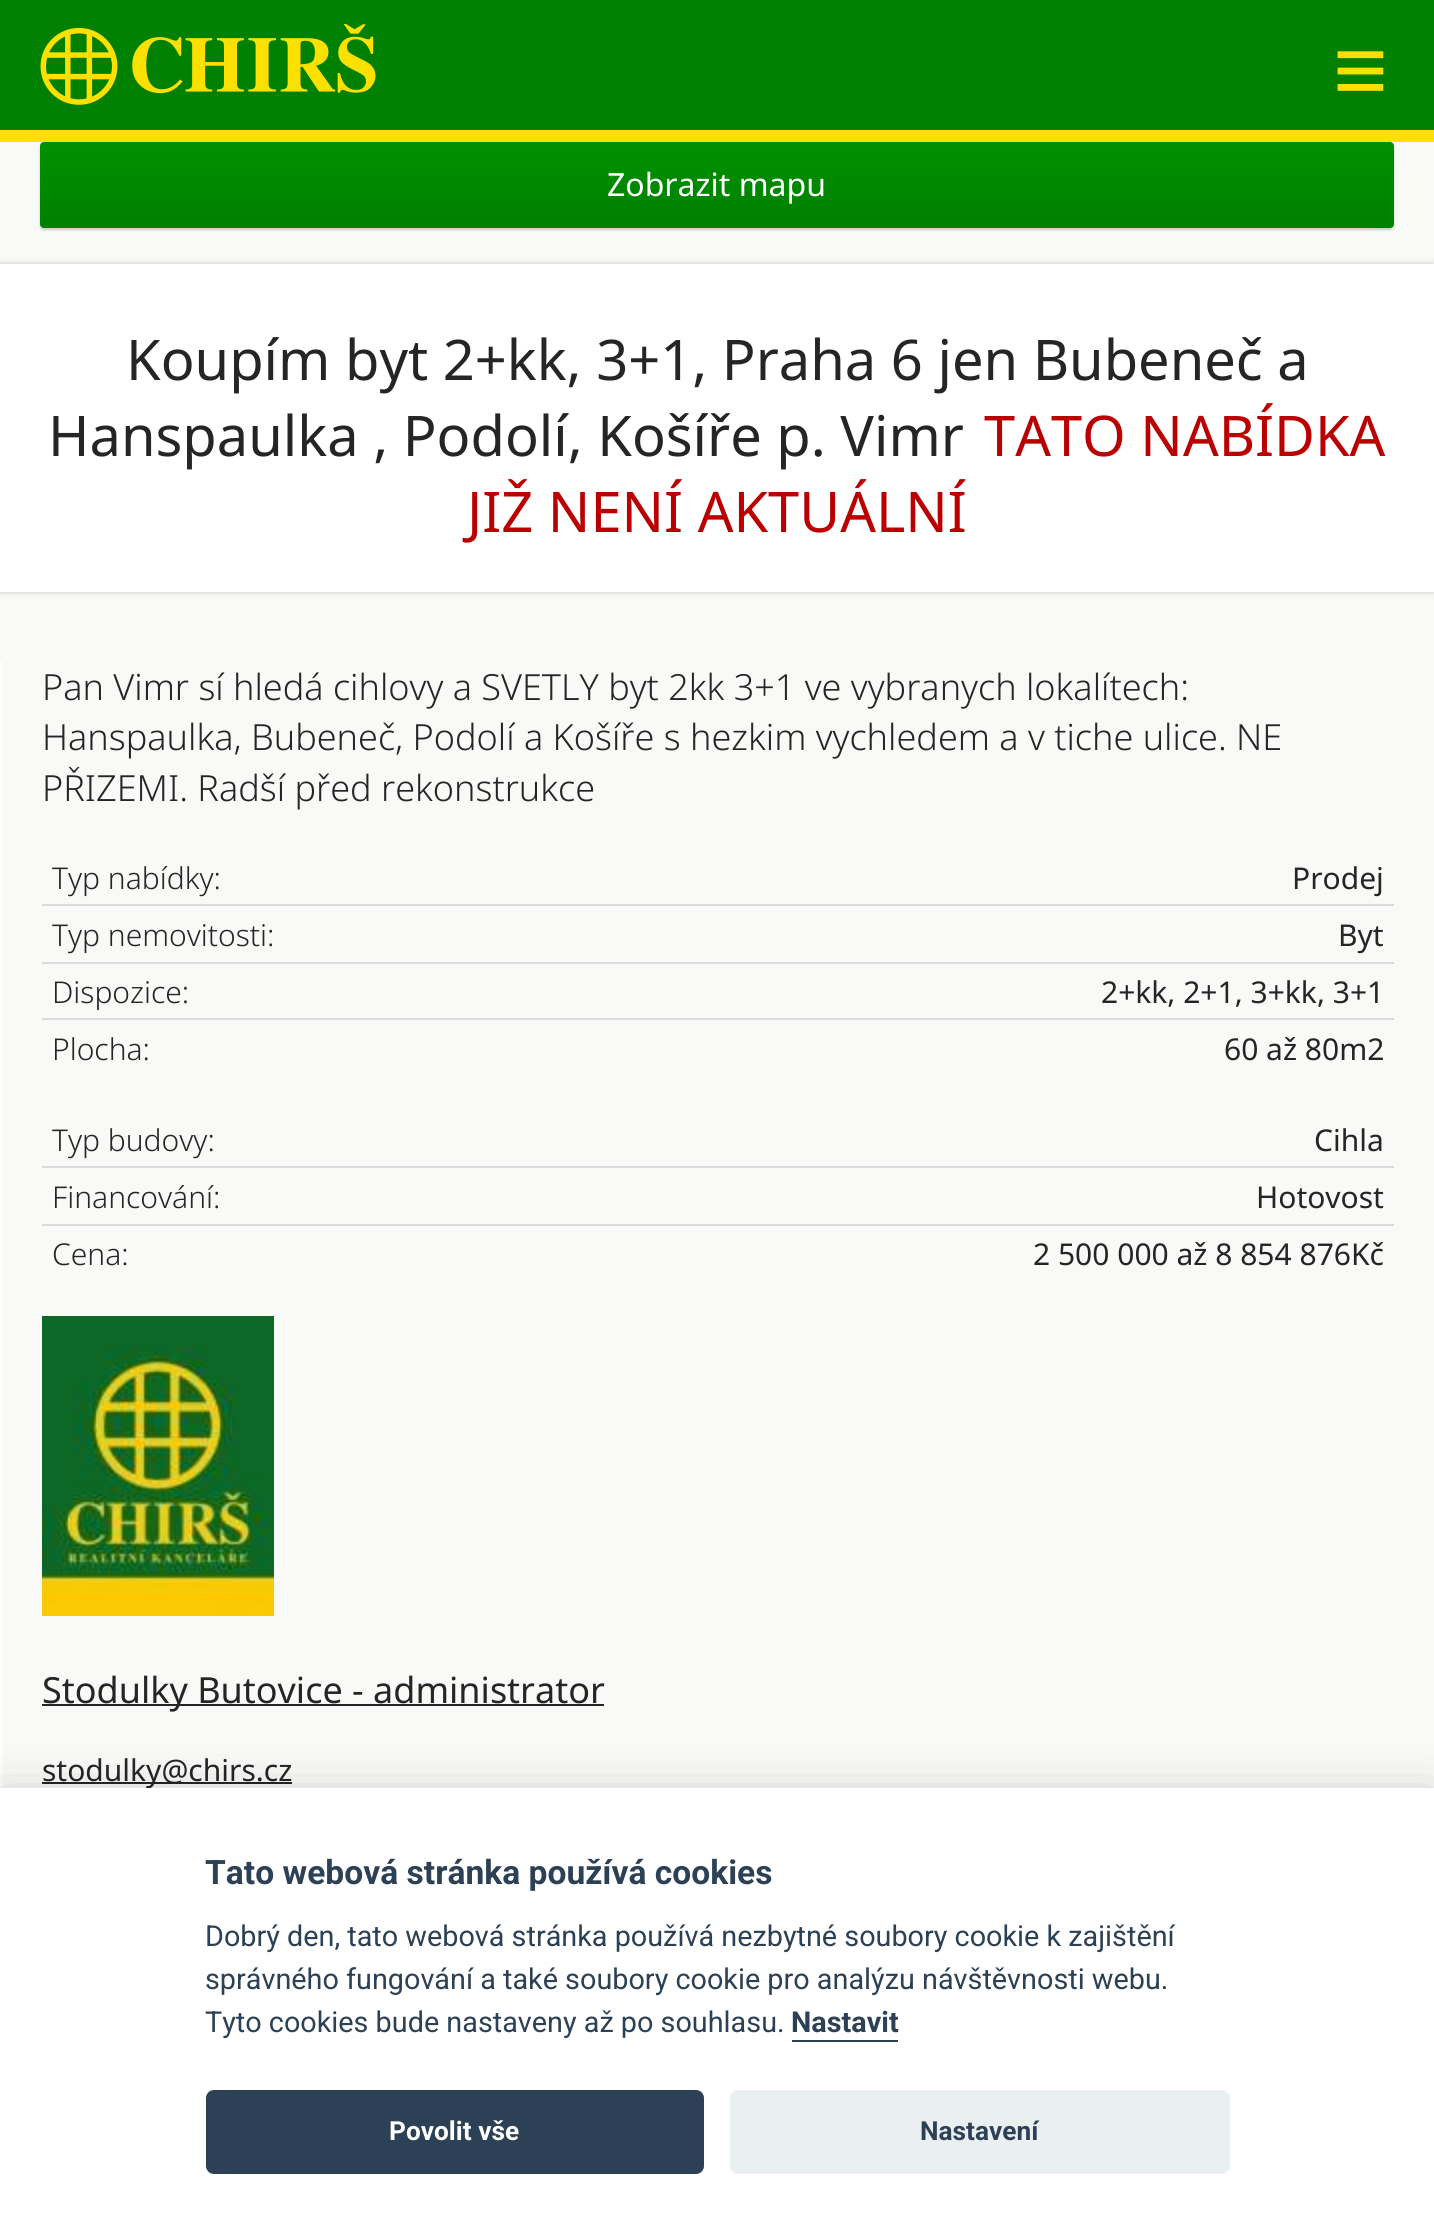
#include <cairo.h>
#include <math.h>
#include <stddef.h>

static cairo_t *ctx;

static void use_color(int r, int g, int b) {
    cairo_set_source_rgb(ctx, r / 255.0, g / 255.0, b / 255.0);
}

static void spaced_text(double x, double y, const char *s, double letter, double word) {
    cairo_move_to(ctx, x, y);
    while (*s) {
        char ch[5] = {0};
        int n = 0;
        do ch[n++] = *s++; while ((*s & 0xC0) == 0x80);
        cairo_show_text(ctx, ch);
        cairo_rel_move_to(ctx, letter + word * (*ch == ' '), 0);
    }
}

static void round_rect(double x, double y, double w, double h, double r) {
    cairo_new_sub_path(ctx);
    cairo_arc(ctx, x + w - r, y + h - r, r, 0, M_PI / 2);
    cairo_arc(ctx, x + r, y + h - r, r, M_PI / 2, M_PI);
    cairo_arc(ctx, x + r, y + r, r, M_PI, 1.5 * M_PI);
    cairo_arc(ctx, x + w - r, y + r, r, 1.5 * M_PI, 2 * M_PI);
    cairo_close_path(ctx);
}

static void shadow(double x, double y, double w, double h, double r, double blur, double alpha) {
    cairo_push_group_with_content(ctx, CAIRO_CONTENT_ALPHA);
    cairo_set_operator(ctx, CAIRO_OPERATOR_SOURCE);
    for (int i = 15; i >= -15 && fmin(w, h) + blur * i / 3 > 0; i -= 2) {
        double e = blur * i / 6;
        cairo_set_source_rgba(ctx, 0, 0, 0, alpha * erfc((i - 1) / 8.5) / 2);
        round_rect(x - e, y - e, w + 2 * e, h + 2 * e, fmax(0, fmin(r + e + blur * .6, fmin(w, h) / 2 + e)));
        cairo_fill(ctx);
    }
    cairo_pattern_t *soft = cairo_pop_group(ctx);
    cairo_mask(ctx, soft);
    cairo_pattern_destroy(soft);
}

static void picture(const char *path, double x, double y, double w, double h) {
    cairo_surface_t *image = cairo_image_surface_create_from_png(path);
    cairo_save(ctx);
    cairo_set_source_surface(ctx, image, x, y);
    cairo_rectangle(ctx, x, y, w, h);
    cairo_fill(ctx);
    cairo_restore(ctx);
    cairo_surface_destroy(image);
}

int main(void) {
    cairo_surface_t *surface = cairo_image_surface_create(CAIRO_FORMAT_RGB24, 1434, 2238);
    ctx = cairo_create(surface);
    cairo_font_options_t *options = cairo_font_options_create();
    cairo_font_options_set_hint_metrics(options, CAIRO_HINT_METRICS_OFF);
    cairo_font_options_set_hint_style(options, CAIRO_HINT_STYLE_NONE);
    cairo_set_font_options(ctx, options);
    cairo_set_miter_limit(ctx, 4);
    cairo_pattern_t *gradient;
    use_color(249, 249, 248);
    cairo_paint(ctx);
    use_color(0, 128, 0);
    cairo_rectangle(ctx, 0, 0, 1434, 130);
    cairo_fill(ctx);
    use_color(204, 204, 204);
    shadow(40, 144, 1354, 86, 4, 1, 1);
    use_color(254, 224, 0);
    cairo_rectangle(ctx, 0, 130, 1434, 12);
    cairo_fill(ctx);
    picture("img1.png", 40, 24, 336, 81);
    cairo_select_font_face(ctx, "Liberation Sans", CAIRO_FONT_SLANT_NORMAL, CAIRO_FONT_WEIGHT_NORMAL);
    cairo_set_font_size(ctx, 94);
    spaced_text(1333, 102, "≡", 25, 0);
    gradient = cairo_pattern_create_linear(717, 142, 717, 228);
    cairo_pattern_add_color_stop_rgba(gradient, 0, 0, 0.569, 0, 1);
    cairo_pattern_add_color_stop_rgba(gradient, 1, 0, 0.502, 0, 1);
    cairo_set_source(ctx, gradient);
    cairo_pattern_destroy(gradient);
    round_rect(40, 142, 1354, 86, 4);
    cairo_fill(ctx);
    cairo_select_font_face(ctx, "Noto Sans", CAIRO_FONT_SLANT_NORMAL, CAIRO_FONT_WEIGHT_NORMAL);
    cairo_set_font_size(ctx, 32);
    use_color(255, 255, 255);
    cairo_move_to(ctx, 607, 196);
    cairo_show_text(ctx, "Zobrazit mapu");
    use_color(0, 0, 0);
    shadow(0, 264, 1434, 328, 0, 3, 0.2);
    use_color(255, 255, 255);
    cairo_rectangle(ctx, 0, 264, 1434, 328);
    cairo_fill(ctx);
    cairo_set_font_size(ctx, 56);
    use_color(37, 37, 37);
    cairo_move_to(ctx, 126, 380);
    cairo_show_text(ctx, "Koupím byt 2+kk, 3+1, Praha 6 jen Bubeneč a");
    cairo_move_to(ctx, 48, 456);
    cairo_show_text(ctx, "Hanspaulka , Podolí, Košíře p. Vimr");
    use_color(186, 0, 0);
    cairo_move_to(ctx, 984, 456);
    cairo_show_text(ctx, "TATO NABÍDKA");
    cairo_move_to(ctx, 467, 532);
    cairo_show_text(ctx, "JIŽ NENÍ AKTUÁLNÍ");
    use_color(255, 255, 255);
    cairo_rectangle(ctx, 0, 662, 2, 1126);
    cairo_fill(ctx);
    cairo_select_font_face(ctx, "Noto Sans Light", CAIRO_FONT_SLANT_NORMAL, CAIRO_FONT_WEIGHT_NORMAL);
    cairo_set_font_size(ctx, 36);
    use_color(37, 37, 37);
    cairo_move_to(ctx, 42, 700);
    cairo_show_text(ctx, "Pan Vimr sí hledá cihlovy a SVETLY byt 2kk 3+1 ve vybranych lokalítech:");
    cairo_move_to(ctx, 42, 750);
    cairo_show_text(ctx, "Hanspaulka, Bubeneč, Podolí a Košíře s hezkim vychledem a v tiche ulice. NE");
    cairo_move_to(ctx, 42, 801);
    cairo_show_text(ctx, "PŘIZEMI. Radší před rekonstrukce");
    cairo_set_font_size(ctx, 30);
    cairo_move_to(ctx, 52, 889);
    cairo_show_text(ctx, "Typ nabídky:");
    cairo_select_font_face(ctx, "Noto Sans", CAIRO_FONT_SLANT_NORMAL, CAIRO_FONT_WEIGHT_NORMAL);
    cairo_move_to(ctx, 1292, 889);
    cairo_show_text(ctx, "Prodej");
    cairo_select_font_face(ctx, "Noto Sans Light", CAIRO_FONT_SLANT_NORMAL, CAIRO_FONT_WEIGHT_NORMAL);
    cairo_move_to(ctx, 52, 946);
    cairo_show_text(ctx, "Typ nemovitosti:");
    use_color(220, 220, 220);
    cairo_rectangle(ctx, 42, 904, 1352, 2);
    cairo_fill(ctx);
    cairo_select_font_face(ctx, "Noto Sans", CAIRO_FONT_SLANT_NORMAL, CAIRO_FONT_WEIGHT_NORMAL);
    use_color(37, 37, 37);
    cairo_move_to(ctx, 1338, 946);
    cairo_show_text(ctx, "Byt");
    cairo_select_font_face(ctx, "Noto Sans Light", CAIRO_FONT_SLANT_NORMAL, CAIRO_FONT_WEIGHT_NORMAL);
    cairo_move_to(ctx, 52, 1003);
    cairo_show_text(ctx, "Dispozice:");
    use_color(220, 220, 220);
    cairo_rectangle(ctx, 42, 962, 1352, 2);
    cairo_fill(ctx);
    cairo_select_font_face(ctx, "Noto Sans", CAIRO_FONT_SLANT_NORMAL, CAIRO_FONT_WEIGHT_NORMAL);
    use_color(37, 37, 37);
    cairo_move_to(ctx, 1101, 1003);
    cairo_show_text(ctx, "2+kk, 2+1, 3+kk, 3+1");
    cairo_select_font_face(ctx, "Noto Sans Light", CAIRO_FONT_SLANT_NORMAL, CAIRO_FONT_WEIGHT_NORMAL);
    cairo_move_to(ctx, 52, 1060);
    cairo_show_text(ctx, "Plocha:");
    use_color(220, 220, 220);
    cairo_rectangle(ctx, 42, 1018, 1352, 2);
    cairo_fill(ctx);
    cairo_select_font_face(ctx, "Noto Sans", CAIRO_FONT_SLANT_NORMAL, CAIRO_FONT_WEIGHT_NORMAL);
    use_color(37, 37, 37);
    cairo_move_to(ctx, 1224, 1060);
    cairo_show_text(ctx, "60 až 80m2");
    cairo_select_font_face(ctx, "Noto Sans Light", CAIRO_FONT_SLANT_NORMAL, CAIRO_FONT_WEIGHT_NORMAL);
    cairo_move_to(ctx, 52, 1151);
    cairo_show_text(ctx, "Typ budovy:");
    cairo_select_font_face(ctx, "Noto Sans", CAIRO_FONT_SLANT_NORMAL, CAIRO_FONT_WEIGHT_NORMAL);
    cairo_move_to(ctx, 1314, 1151);
    cairo_show_text(ctx, "Cihla");
    cairo_select_font_face(ctx, "Noto Sans Light", CAIRO_FONT_SLANT_NORMAL, CAIRO_FONT_WEIGHT_NORMAL);
    cairo_move_to(ctx, 52, 1208);
    cairo_show_text(ctx, "Financování:");
    use_color(220, 220, 220);
    cairo_rectangle(ctx, 42, 1166, 1352, 2);
    cairo_fill(ctx);
    cairo_select_font_face(ctx, "Noto Sans", CAIRO_FONT_SLANT_NORMAL, CAIRO_FONT_WEIGHT_NORMAL);
    use_color(37, 37, 37);
    cairo_move_to(ctx, 1256, 1208);
    cairo_show_text(ctx, "Hotovost");
    cairo_select_font_face(ctx, "Noto Sans Light", CAIRO_FONT_SLANT_NORMAL, CAIRO_FONT_WEIGHT_NORMAL);
    cairo_move_to(ctx, 52, 1265);
    cairo_show_text(ctx, "Cena:");
    use_color(220, 220, 220);
    cairo_rectangle(ctx, 42, 1224, 1352, 2);
    cairo_fill(ctx);
    cairo_select_font_face(ctx, "Noto Sans", CAIRO_FONT_SLANT_NORMAL, CAIRO_FONT_WEIGHT_NORMAL);
    use_color(37, 37, 37);
    cairo_move_to(ctx, 1033, 1265);
    cairo_show_text(ctx, "2 500 000 až 8 854 876Kč");
    picture("img2.png", 42, 1316, 232, 300);
    cairo_rectangle(ctx, 42, 1704, 562, 2);
    cairo_fill(ctx);
    cairo_set_font_size(ctx, 36);
    cairo_move_to(ctx, 42, 1703);
    cairo_show_text(ctx, "Stodulky Butovice - administrator");
    cairo_rectangle(ctx, 42, 1782, 250, 2);
    cairo_fill(ctx);
    cairo_set_font_size(ctx, 30);
    cairo_move_to(ctx, 42, 1781);
    cairo_show_text(ctx, "stodulky@chirs.cz");
    use_color(2, 2, 3);
    shadow(0, 1808, 1434, 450, 0, 30, 0.28);
    use_color(255, 255, 255);
    cairo_rectangle(ctx, 0, 1788, 1434, 450);
    cairo_fill(ctx);
    cairo_select_font_face(ctx, "Roboto", CAIRO_FONT_SLANT_NORMAL, CAIRO_FONT_WEIGHT_BOLD);
    cairo_set_font_size(ctx, 33.6);
    use_color(45, 65, 86);
    cairo_move_to(ctx, 205, 1884);
    cairo_show_text(ctx, "Tato webová stránka používá cookies");
    cairo_select_font_face(ctx, "Roboto", CAIRO_FONT_SLANT_NORMAL, CAIRO_FONT_WEIGHT_NORMAL);
    cairo_set_font_size(ctx, 28.8);
    cairo_move_to(ctx, 205, 1946);
    cairo_show_text(ctx, "Dobrý den, tato webová stránka používá nezbytné soubory cookie k zajištění");
    cairo_move_to(ctx, 205, 1989);
    cairo_show_text(ctx, "správného fungování a také soubory cookie pro analýzu návštěvnosti webu.");
    cairo_move_to(ctx, 205, 2032);
    cairo_show_text(ctx, "Tyto cookies bude nastaveny až po souhlasu.");
    cairo_select_font_face(ctx, "Roboto", CAIRO_FONT_SLANT_NORMAL, CAIRO_FONT_WEIGHT_BOLD);
    cairo_move_to(ctx, 791, 2032);
    cairo_show_text(ctx, "Nastavit");
    cairo_rectangle(ctx, 792, 2040, 106, 2);
    cairo_fill(ctx);
    round_rect(206, 2090, 498, 84, 8);
    cairo_fill(ctx);
    cairo_set_font_size(ctx, 26.25);
    use_color(255, 255, 255);
    cairo_move_to(ctx, 389, 2140);
    cairo_show_text(ctx, "Povolit vše");
    use_color(234, 239, 242);
    round_rect(730, 2090, 500, 84, 8);
    cairo_fill(ctx);
    use_color(45, 65, 86);
    cairo_move_to(ctx, 920, 2140);
    cairo_show_text(ctx, "Nastavení");
    cairo_surface_write_to_png(surface, "result.png");
    cairo_font_options_destroy(options);
    cairo_destroy(ctx);
    cairo_surface_destroy(surface);
    return 0;
}
